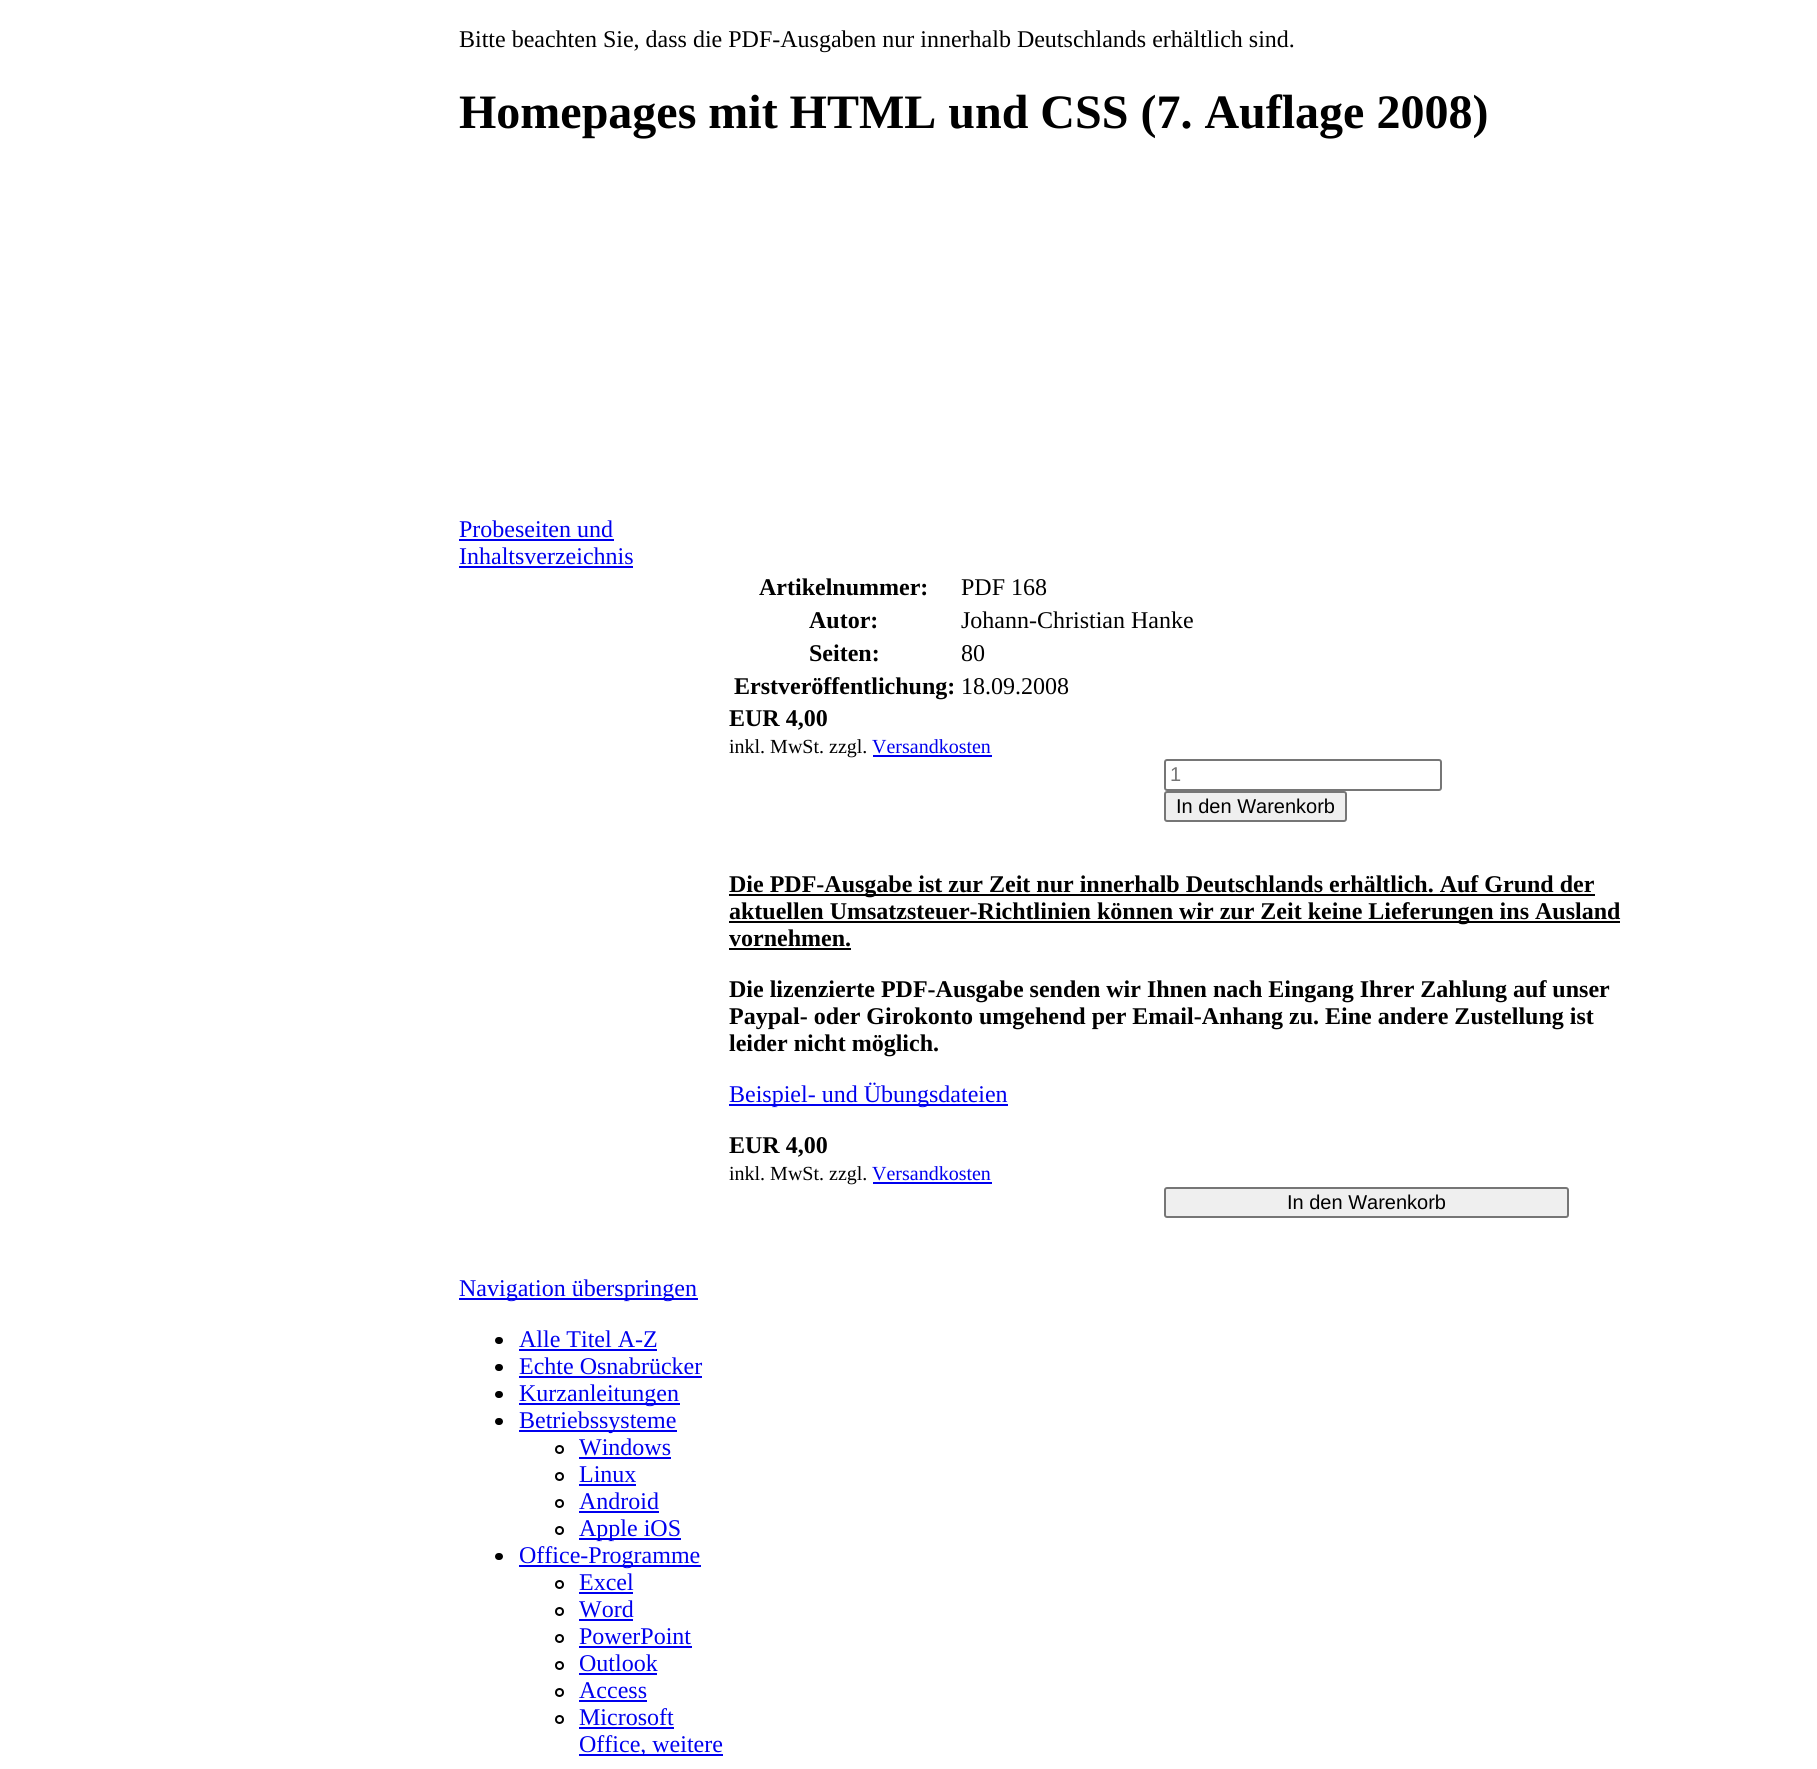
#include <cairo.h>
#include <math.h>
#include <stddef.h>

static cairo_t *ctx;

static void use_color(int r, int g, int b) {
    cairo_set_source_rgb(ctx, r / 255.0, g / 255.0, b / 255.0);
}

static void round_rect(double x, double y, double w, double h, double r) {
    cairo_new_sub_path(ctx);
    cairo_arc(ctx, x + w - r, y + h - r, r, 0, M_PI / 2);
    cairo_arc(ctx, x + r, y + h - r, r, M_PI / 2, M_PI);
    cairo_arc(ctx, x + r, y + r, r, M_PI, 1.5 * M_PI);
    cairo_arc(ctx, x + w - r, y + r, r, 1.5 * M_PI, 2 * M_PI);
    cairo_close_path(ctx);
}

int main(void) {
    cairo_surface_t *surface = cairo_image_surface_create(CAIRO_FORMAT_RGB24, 1817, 1769);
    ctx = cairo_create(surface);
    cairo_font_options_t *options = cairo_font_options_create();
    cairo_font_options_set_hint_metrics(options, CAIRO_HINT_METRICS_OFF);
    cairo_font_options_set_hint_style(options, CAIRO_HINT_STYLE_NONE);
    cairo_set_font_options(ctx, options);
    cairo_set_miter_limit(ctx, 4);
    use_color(255, 255, 255);
    cairo_paint(ctx);
    cairo_select_font_face(ctx, "Liberation Serif", CAIRO_FONT_SLANT_NORMAL, CAIRO_FONT_WEIGHT_NORMAL);
    cairo_set_font_size(ctx, 24);
    use_color(0, 0, 0);
    cairo_move_to(ctx, 459, 47);
    cairo_show_text(ctx, "Bitte beachten Sie, dass die PDF-Ausgaben nur innerhalb Deutschlands erhältlich sind.");
    cairo_select_font_face(ctx, "Liberation Serif", CAIRO_FONT_SLANT_NORMAL, CAIRO_FONT_WEIGHT_BOLD);
    cairo_set_font_size(ctx, 48);
    cairo_move_to(ctx, 459, 128);
    cairo_show_text(ctx, "Homepages mit HTML und CSS (7. Auflage 2008)");
    cairo_select_font_face(ctx, "Liberation Serif", CAIRO_FONT_SLANT_NORMAL, CAIRO_FONT_WEIGHT_NORMAL);
    cairo_set_font_size(ctx, 24);
    use_color(0, 0, 238);
    cairo_move_to(ctx, 459, 537);
    cairo_show_text(ctx, "Probeseiten und");
    cairo_rectangle(ctx, 459, 539, 155, 2);
    cairo_fill(ctx);
    cairo_move_to(ctx, 459, 564);
    cairo_show_text(ctx, "Inhaltsverzeichnis");
    cairo_rectangle(ctx, 459, 566, 174, 2);
    cairo_fill(ctx);
    cairo_select_font_face(ctx, "Liberation Serif", CAIRO_FONT_SLANT_NORMAL, CAIRO_FONT_WEIGHT_BOLD);
    use_color(0, 0, 0);
    cairo_move_to(ctx, 759, 595);
    cairo_show_text(ctx, "Artikelnummer:");
    cairo_select_font_face(ctx, "Liberation Serif", CAIRO_FONT_SLANT_NORMAL, CAIRO_FONT_WEIGHT_NORMAL);
    cairo_move_to(ctx, 961, 595);
    cairo_show_text(ctx, "PDF 168");
    cairo_select_font_face(ctx, "Liberation Serif", CAIRO_FONT_SLANT_NORMAL, CAIRO_FONT_WEIGHT_BOLD);
    cairo_move_to(ctx, 809, 628);
    cairo_show_text(ctx, "Autor:");
    cairo_select_font_face(ctx, "Liberation Serif", CAIRO_FONT_SLANT_NORMAL, CAIRO_FONT_WEIGHT_NORMAL);
    cairo_move_to(ctx, 961, 628);
    cairo_show_text(ctx, "Johann-Christian Hanke");
    cairo_select_font_face(ctx, "Liberation Serif", CAIRO_FONT_SLANT_NORMAL, CAIRO_FONT_WEIGHT_BOLD);
    cairo_move_to(ctx, 809, 661);
    cairo_show_text(ctx, "Seiten:");
    cairo_select_font_face(ctx, "Liberation Serif", CAIRO_FONT_SLANT_NORMAL, CAIRO_FONT_WEIGHT_NORMAL);
    cairo_move_to(ctx, 961, 661);
    cairo_show_text(ctx, "80");
    cairo_select_font_face(ctx, "Liberation Serif", CAIRO_FONT_SLANT_NORMAL, CAIRO_FONT_WEIGHT_BOLD);
    cairo_move_to(ctx, 734, 694);
    cairo_show_text(ctx, "Erstveröffentlichung:");
    cairo_select_font_face(ctx, "Liberation Serif", CAIRO_FONT_SLANT_NORMAL, CAIRO_FONT_WEIGHT_NORMAL);
    cairo_move_to(ctx, 961, 694);
    cairo_show_text(ctx, "18.09.2008");
    cairo_select_font_face(ctx, "Liberation Serif", CAIRO_FONT_SLANT_NORMAL, CAIRO_FONT_WEIGHT_BOLD);
    cairo_move_to(ctx, 729, 726);
    cairo_show_text(ctx, "EUR 4,00");
    cairo_select_font_face(ctx, "Liberation Serif", CAIRO_FONT_SLANT_NORMAL, CAIRO_FONT_WEIGHT_NORMAL);
    cairo_set_font_size(ctx, 20);
    cairo_move_to(ctx, 729, 753);
    cairo_show_text(ctx, "inkl. MwSt. zzgl.");
    use_color(0, 0, 238);
    cairo_move_to(ctx, 872, 753);
    cairo_show_text(ctx, "Versandkosten");
    cairo_rectangle(ctx, 873, 755, 119, 2);
    cairo_fill(ctx);
    round_rect(1165, 760, 276, 30, 2);
    use_color(118, 118, 118);
    cairo_stroke(ctx);
    cairo_select_font_face(ctx, "Liberation Sans", CAIRO_FONT_SLANT_NORMAL, CAIRO_FONT_WEIGHT_NORMAL);
    use_color(117, 117, 117);
    cairo_move_to(ctx, 1170, 781);
    cairo_show_text(ctx, "1");
    use_color(239, 239, 239);
    round_rect(1165, 792, 181, 29, 2);
    cairo_fill_preserve(ctx);
    use_color(118, 118, 118);
    cairo_stroke(ctx);
    use_color(0, 0, 0);
    cairo_move_to(ctx, 1176, 813);
    cairo_show_text(ctx, "In den Warenkorb");
    cairo_rectangle(ctx, 729, 894, 866, 2);
    cairo_fill(ctx);
    cairo_select_font_face(ctx, "Liberation Serif", CAIRO_FONT_SLANT_NORMAL, CAIRO_FONT_WEIGHT_BOLD);
    cairo_set_font_size(ctx, 24);
    cairo_move_to(ctx, 729, 892);
    cairo_show_text(ctx, "Die PDF-Ausgabe ist zur Zeit nur innerhalb Deutschlands erhältlich. Auf Grund der");
    cairo_rectangle(ctx, 729, 921, 891, 2);
    cairo_fill(ctx);
    cairo_move_to(ctx, 729, 919);
    cairo_show_text(ctx, "aktuellen Umsatzsteuer-Richtlinien können wir zur Zeit keine Lieferungen ins Ausland");
    cairo_move_to(ctx, 729, 946);
    cairo_show_text(ctx, "vornehmen.");
    cairo_rectangle(ctx, 729, 948, 122, 2);
    cairo_fill(ctx);
    cairo_move_to(ctx, 729, 997);
    cairo_show_text(ctx, "Die lizenzierte PDF-Ausgabe senden wir Ihnen nach Eingang Ihrer Zahlung auf unser");
    cairo_move_to(ctx, 729, 1024);
    cairo_show_text(ctx, "Paypal- oder Girokonto umgehend per Email-Anhang zu. Eine andere Zustellung ist");
    cairo_move_to(ctx, 729, 1051);
    cairo_show_text(ctx, "leider nicht möglich.");
    use_color(0, 0, 238);
    cairo_rectangle(ctx, 729, 1104, 279, 2);
    cairo_fill(ctx);
    cairo_select_font_face(ctx, "Liberation Serif", CAIRO_FONT_SLANT_NORMAL, CAIRO_FONT_WEIGHT_NORMAL);
    cairo_move_to(ctx, 729, 1102);
    cairo_show_text(ctx, "Beispiel- und Übungsdateien");
    cairo_select_font_face(ctx, "Liberation Serif", CAIRO_FONT_SLANT_NORMAL, CAIRO_FONT_WEIGHT_BOLD);
    use_color(0, 0, 0);
    cairo_move_to(ctx, 729, 1153);
    cairo_show_text(ctx, "EUR 4,00");
    cairo_select_font_face(ctx, "Liberation Serif", CAIRO_FONT_SLANT_NORMAL, CAIRO_FONT_WEIGHT_NORMAL);
    cairo_set_font_size(ctx, 20);
    cairo_move_to(ctx, 729, 1180);
    cairo_show_text(ctx, "inkl. MwSt. zzgl.");
    use_color(0, 0, 238);
    cairo_move_to(ctx, 872, 1180);
    cairo_show_text(ctx, "Versandkosten");
    cairo_rectangle(ctx, 873, 1182, 119, 2);
    cairo_fill(ctx);
    use_color(239, 239, 239);
    round_rect(1165, 1188, 403, 29, 2);
    cairo_fill_preserve(ctx);
    use_color(118, 118, 118);
    cairo_stroke(ctx);
    cairo_select_font_face(ctx, "Liberation Sans", CAIRO_FONT_SLANT_NORMAL, CAIRO_FONT_WEIGHT_NORMAL);
    use_color(0, 0, 0);
    cairo_move_to(ctx, 1287, 1209);
    cairo_show_text(ctx, "In den Warenkorb");
    use_color(0, 0, 238);
    cairo_rectangle(ctx, 459, 1298, 239, 2);
    cairo_fill(ctx);
    cairo_select_font_face(ctx, "Liberation Serif", CAIRO_FONT_SLANT_NORMAL, CAIRO_FONT_WEIGHT_NORMAL);
    cairo_set_font_size(ctx, 24);
    cairo_move_to(ctx, 459, 1296);
    cairo_show_text(ctx, "Navigation überspringen");
    use_color(0, 0, 0);
    round_rect(495, 1337, 8, 7, 3.5);
    cairo_fill(ctx);
    use_color(0, 0, 238);
    cairo_move_to(ctx, 519, 1347);
    cairo_show_text(ctx, "Alle Titel A-Z");
    cairo_rectangle(ctx, 519, 1349, 138, 2);
    cairo_fill(ctx);
    use_color(0, 0, 0);
    round_rect(495, 1364, 8, 7, 3.5);
    cairo_fill(ctx);
    use_color(0, 0, 238);
    cairo_move_to(ctx, 519, 1374);
    cairo_show_text(ctx, "Echte Osnabrücker");
    cairo_rectangle(ctx, 519, 1376, 183, 2);
    cairo_fill(ctx);
    use_color(0, 0, 0);
    round_rect(495, 1391, 8, 7, 3.5);
    cairo_fill(ctx);
    use_color(0, 0, 238);
    cairo_rectangle(ctx, 519, 1403, 161, 2);
    cairo_fill(ctx);
    cairo_move_to(ctx, 519, 1401);
    cairo_show_text(ctx, "Kurzanleitungen");
    use_color(0, 0, 0);
    round_rect(495, 1418, 8, 7, 3.5);
    cairo_fill(ctx);
    use_color(0, 0, 238);
    cairo_rectangle(ctx, 519, 1430, 158, 2);
    cairo_fill(ctx);
    cairo_move_to(ctx, 519, 1428);
    cairo_show_text(ctx, "Betriebssysteme");
    cairo_new_path(ctx);
    cairo_arc(ctx, 559.5, 1449.5, 3.5, 0, 2 * M_PI);
    use_color(0, 0, 0);
    cairo_stroke(ctx);
    use_color(0, 0, 238);
    cairo_move_to(ctx, 579, 1455);
    cairo_show_text(ctx, "Windows");
    cairo_rectangle(ctx, 579, 1457, 92, 2);
    cairo_fill(ctx);
    cairo_arc(ctx, 559.5, 1476.5, 3.5, 0, 2 * M_PI);
    use_color(0, 0, 0);
    cairo_stroke(ctx);
    use_color(0, 0, 238);
    cairo_move_to(ctx, 579, 1482);
    cairo_show_text(ctx, "Linux");
    cairo_rectangle(ctx, 579, 1484, 57, 2);
    cairo_fill(ctx);
    cairo_arc(ctx, 559.5, 1503.5, 3.5, 0, 2 * M_PI);
    use_color(0, 0, 0);
    cairo_stroke(ctx);
    use_color(0, 0, 238);
    cairo_move_to(ctx, 579, 1509);
    cairo_show_text(ctx, "Android");
    cairo_rectangle(ctx, 579, 1511, 80, 2);
    cairo_fill(ctx);
    cairo_arc(ctx, 559.5, 1530.5, 3.5, 0, 2 * M_PI);
    use_color(0, 0, 0);
    cairo_stroke(ctx);
    use_color(0, 0, 238);
    cairo_rectangle(ctx, 579, 1538, 102, 2);
    cairo_fill(ctx);
    cairo_move_to(ctx, 579, 1536);
    cairo_show_text(ctx, "Apple iOS");
    use_color(0, 0, 0);
    round_rect(495, 1553, 8, 7, 3.5);
    cairo_fill(ctx);
    use_color(0, 0, 238);
    cairo_rectangle(ctx, 519, 1565, 182, 2);
    cairo_fill(ctx);
    cairo_move_to(ctx, 519, 1563);
    cairo_show_text(ctx, "Office-Programme");
    cairo_new_path(ctx);
    cairo_arc(ctx, 559.5, 1584.5, 3.5, 0, 2 * M_PI);
    use_color(0, 0, 0);
    cairo_stroke(ctx);
    use_color(0, 0, 238);
    cairo_move_to(ctx, 579, 1590);
    cairo_show_text(ctx, "Excel");
    cairo_rectangle(ctx, 579, 1592, 54, 2);
    cairo_fill(ctx);
    cairo_arc(ctx, 559.5, 1611.5, 3.5, 0, 2 * M_PI);
    use_color(0, 0, 0);
    cairo_stroke(ctx);
    use_color(0, 0, 238);
    cairo_move_to(ctx, 579, 1617);
    cairo_show_text(ctx, "Word");
    cairo_rectangle(ctx, 579, 1619, 54, 2);
    cairo_fill(ctx);
    cairo_arc(ctx, 559.5, 1638.5, 3.5, 0, 2 * M_PI);
    use_color(0, 0, 0);
    cairo_stroke(ctx);
    use_color(0, 0, 238);
    cairo_move_to(ctx, 579, 1644);
    cairo_show_text(ctx, "PowerPoint");
    cairo_rectangle(ctx, 579, 1646, 113, 2);
    cairo_fill(ctx);
    cairo_arc(ctx, 559.5, 1665.5, 3.5, 0, 2 * M_PI);
    use_color(0, 0, 0);
    cairo_stroke(ctx);
    use_color(0, 0, 238);
    cairo_move_to(ctx, 579, 1671);
    cairo_show_text(ctx, "Outlook");
    cairo_rectangle(ctx, 579, 1673, 78, 2);
    cairo_fill(ctx);
    cairo_arc(ctx, 559.5, 1692.5, 3.5, 0, 2 * M_PI);
    use_color(0, 0, 0);
    cairo_stroke(ctx);
    use_color(0, 0, 238);
    cairo_move_to(ctx, 579, 1698);
    cairo_show_text(ctx, "Access");
    cairo_rectangle(ctx, 579, 1700, 68, 2);
    cairo_fill(ctx);
    cairo_arc(ctx, 559.5, 1719.5, 3.5, 0, 2 * M_PI);
    use_color(0, 0, 0);
    cairo_stroke(ctx);
    use_color(0, 0, 238);
    cairo_move_to(ctx, 579, 1725);
    cairo_show_text(ctx, "Microsoft");
    cairo_rectangle(ctx, 579, 1727, 95, 2);
    cairo_fill(ctx);
    cairo_rectangle(ctx, 579, 1754, 144, 2);
    cairo_fill(ctx);
    cairo_move_to(ctx, 579, 1752);
    cairo_show_text(ctx, "Office, weitere");
    cairo_surface_write_to_png(surface, "result.png");
    cairo_font_options_destroy(options);
    cairo_destroy(ctx);
    cairo_surface_destroy(surface);
    return 0;
}
